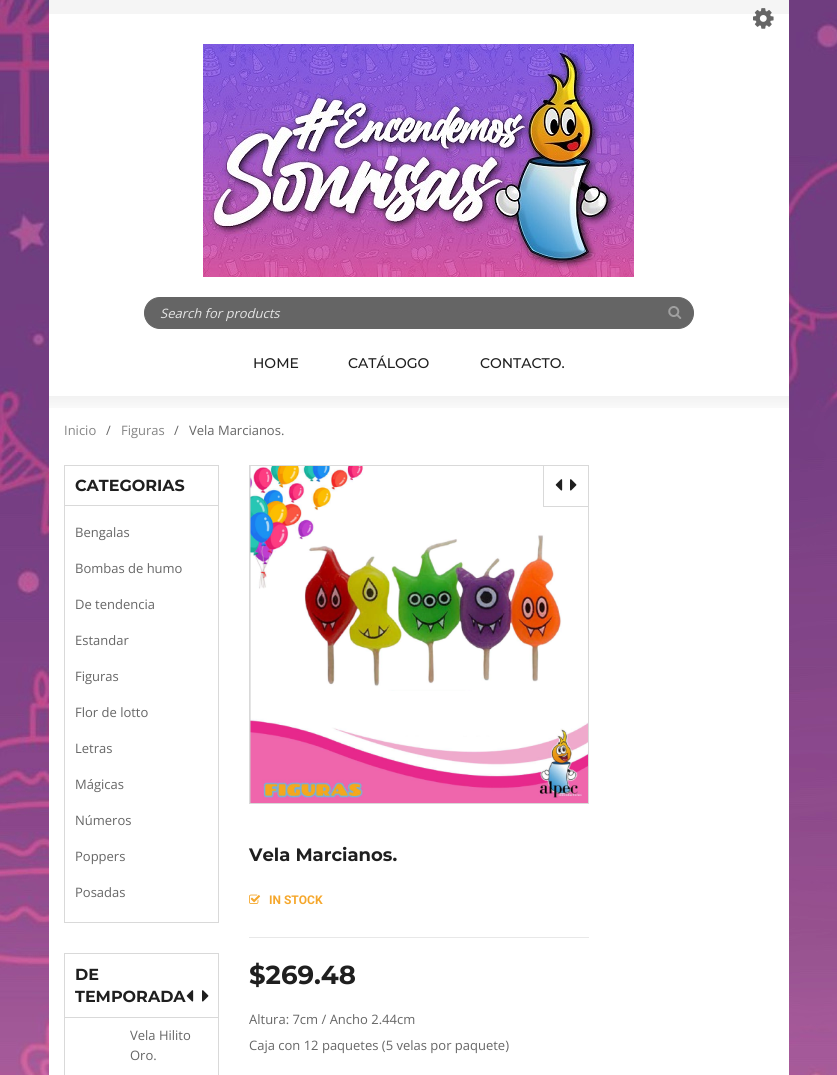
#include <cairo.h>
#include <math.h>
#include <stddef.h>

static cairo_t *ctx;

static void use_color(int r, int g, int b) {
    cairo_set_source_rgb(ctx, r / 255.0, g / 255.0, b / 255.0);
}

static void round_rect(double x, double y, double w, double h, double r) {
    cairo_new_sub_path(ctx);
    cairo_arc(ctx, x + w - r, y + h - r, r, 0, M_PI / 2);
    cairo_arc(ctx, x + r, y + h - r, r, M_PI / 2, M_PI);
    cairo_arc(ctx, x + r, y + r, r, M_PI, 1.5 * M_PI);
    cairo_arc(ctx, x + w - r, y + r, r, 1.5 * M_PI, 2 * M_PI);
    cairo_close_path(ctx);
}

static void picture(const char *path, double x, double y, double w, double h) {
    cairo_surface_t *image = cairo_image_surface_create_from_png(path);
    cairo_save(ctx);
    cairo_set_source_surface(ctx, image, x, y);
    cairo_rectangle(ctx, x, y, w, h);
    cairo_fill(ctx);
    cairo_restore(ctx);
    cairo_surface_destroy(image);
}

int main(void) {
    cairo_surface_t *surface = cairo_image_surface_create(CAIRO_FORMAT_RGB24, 837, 1075);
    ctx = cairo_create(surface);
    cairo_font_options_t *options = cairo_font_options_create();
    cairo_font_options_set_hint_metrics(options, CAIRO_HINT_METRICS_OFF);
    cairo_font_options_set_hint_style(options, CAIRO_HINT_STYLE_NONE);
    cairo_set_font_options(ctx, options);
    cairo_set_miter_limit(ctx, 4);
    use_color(255, 255, 255);
    cairo_paint(ctx);
    picture("img1.png", 0, 0, 837, 1075);
    use_color(245, 245, 245);
    cairo_rectangle(ctx, 49, 0, 740, 14);
    cairo_fill(ctx);
    use_color(255, 255, 255);
    cairo_rectangle(ctx, 49, 14, 740, 1061);
    cairo_fill(ctx);
    picture("img2.png", 753, 8, 21, 21);
    picture("img3.png", 203, 44, 431, 233);
    use_color(101, 101, 101);
    round_rect(144.5, 297.5, 549, 31, 15.5);
    cairo_fill_preserve(ctx);
    cairo_set_line_width(ctx, 1);
    cairo_stroke(ctx);
    cairo_select_font_face(ctx, "Open Sans", CAIRO_FONT_SLANT_ITALIC, CAIRO_FONT_WEIGHT_NORMAL);
    cairo_set_font_size(ctx, 13);
    use_color(229, 229, 229);
    cairo_move_to(ctx, 160, 318);
    cairo_show_text(ctx, "Search for products");
    picture("img4.png", 668, 306, 14, 13);
    cairo_select_font_face(ctx, "Montserrat Medium", CAIRO_FONT_SLANT_NORMAL, CAIRO_FONT_WEIGHT_NORMAL);
    cairo_set_font_size(ctx, 14);
    use_color(31, 31, 31);
    cairo_move_to(ctx, 253, 368);
    cairo_show_text(ctx, "HOME");
    cairo_move_to(ctx, 348, 368);
    cairo_show_text(ctx, "CATÁLOGO");
    cairo_move_to(ctx, 480, 368);
    cairo_show_text(ctx, "CONTACTO.");
    picture("img5.png", 49, 396, 740, 12);
    cairo_select_font_face(ctx, "Open Sans", CAIRO_FONT_SLANT_NORMAL, CAIRO_FONT_WEIGHT_NORMAL);
    cairo_set_font_size(ctx, 13);
    use_color(133, 133, 133);
    cairo_move_to(ctx, 64, 435);
    cairo_show_text(ctx, "Inicio");
    use_color(102, 102, 102);
    cairo_move_to(ctx, 106, 435);
    cairo_show_text(ctx, "/");
    use_color(133, 133, 133);
    cairo_move_to(ctx, 121, 435);
    cairo_show_text(ctx, "Figuras");
    use_color(102, 102, 102);
    cairo_move_to(ctx, 174, 435);
    cairo_show_text(ctx, "/");
    cairo_move_to(ctx, 189, 435);
    cairo_show_text(ctx, "Vela Marcianos.");
    cairo_rectangle(ctx, 64.5, 465.5, 154, 457);
    use_color(217, 217, 217);
    cairo_stroke(ctx);
    cairo_select_font_face(ctx, "Montserrat", CAIRO_FONT_SLANT_NORMAL, CAIRO_FONT_WEIGHT_BOLD);
    cairo_set_font_size(ctx, 16);
    use_color(31, 31, 31);
    cairo_move_to(ctx, 75, 491);
    cairo_show_text(ctx, "CATEGORIAS");
    use_color(217, 217, 217);
    cairo_rectangle(ctx, 65, 505, 153, 1);
    cairo_fill(ctx);
    cairo_select_font_face(ctx, "Open Sans", CAIRO_FONT_SLANT_NORMAL, CAIRO_FONT_WEIGHT_NORMAL);
    cairo_set_font_size(ctx, 13);
    use_color(102, 102, 102);
    cairo_move_to(ctx, 75, 537);
    cairo_show_text(ctx, "Bengalas");
    cairo_move_to(ctx, 75, 573);
    cairo_show_text(ctx, "Bombas de humo");
    cairo_move_to(ctx, 75, 609);
    cairo_show_text(ctx, "De tendencia");
    cairo_move_to(ctx, 75, 645);
    cairo_show_text(ctx, "Estandar");
    cairo_move_to(ctx, 75, 681);
    cairo_show_text(ctx, "Figuras");
    cairo_move_to(ctx, 75, 717);
    cairo_show_text(ctx, "Flor de lotto");
    cairo_move_to(ctx, 75, 753);
    cairo_show_text(ctx, "Letras");
    cairo_move_to(ctx, 75, 789);
    cairo_show_text(ctx, "Mágicas");
    cairo_move_to(ctx, 75, 825);
    cairo_show_text(ctx, "Números");
    cairo_move_to(ctx, 75, 861);
    cairo_show_text(ctx, "Poppers");
    cairo_move_to(ctx, 75, 897);
    cairo_show_text(ctx, "Posadas");
    cairo_rectangle(ctx, 64.5, 953.5, 154, 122);
    use_color(217, 217, 217);
    cairo_stroke(ctx);
    cairo_select_font_face(ctx, "Montserrat", CAIRO_FONT_SLANT_NORMAL, CAIRO_FONT_WEIGHT_BOLD);
    cairo_set_font_size(ctx, 16);
    use_color(31, 31, 31);
    cairo_move_to(ctx, 75, 980);
    cairo_show_text(ctx, "DE");
    cairo_move_to(ctx, 75, 1002);
    cairo_show_text(ctx, "TEMPORADA");
    use_color(217, 217, 217);
    cairo_rectangle(ctx, 65, 1017, 153, 1);
    cairo_fill(ctx);
    picture("img6.png", 186, 990, 8, 12);
    picture("img7.png", 202, 990, 7, 12);
    cairo_select_font_face(ctx, "Open Sans", CAIRO_FONT_SLANT_NORMAL, CAIRO_FONT_WEIGHT_NORMAL);
    cairo_set_font_size(ctx, 13);
    use_color(102, 102, 102);
    cairo_move_to(ctx, 130, 1040);
    cairo_show_text(ctx, "Vela Hilito");
    cairo_move_to(ctx, 130, 1060);
    cairo_show_text(ctx, "Oro.");
    cairo_rectangle(ctx, 249.5, 465.5, 339, 338);
    use_color(217, 217, 217);
    cairo_stroke(ctx);
    picture("img8.png", 250, 466, 338, 337);
    cairo_rectangle(ctx, 543.5, 465.5, 45, 41);
    cairo_stroke(ctx);
    picture("img6.png", 555, 479, 8, 12);
    picture("img7.png", 570, 479, 7, 12);
    cairo_select_font_face(ctx, "Montserrat", CAIRO_FONT_SLANT_NORMAL, CAIRO_FONT_WEIGHT_BOLD);
    cairo_set_font_size(ctx, 18);
    use_color(31, 31, 31);
    cairo_move_to(ctx, 249, 861);
    cairo_show_text(ctx, "Vela Marcianos.");
    picture("img9.png", 249, 894, 12, 10);
    cairo_select_font_face(ctx, "Roboto", CAIRO_FONT_SLANT_NORMAL, CAIRO_FONT_WEIGHT_BOLD);
    cairo_set_font_size(ctx, 12);
    use_color(245, 167, 44);
    cairo_move_to(ctx, 269, 904);
    cairo_show_text(ctx, "IN STOCK");
    use_color(232, 232, 232);
    cairo_rectangle(ctx, 249, 937, 340, 1);
    cairo_fill(ctx);
    cairo_select_font_face(ctx, "Montserrat", CAIRO_FONT_SLANT_NORMAL, CAIRO_FONT_WEIGHT_BOLD);
    cairo_set_font_size(ctx, 26);
    use_color(31, 31, 31);
    cairo_move_to(ctx, 249, 984);
    cairo_show_text(ctx, "$269.48");
    cairo_select_font_face(ctx, "Open Sans", CAIRO_FONT_SLANT_NORMAL, CAIRO_FONT_WEIGHT_NORMAL);
    cairo_set_font_size(ctx, 13);
    use_color(102, 102, 102);
    cairo_move_to(ctx, 249, 1024);
    cairo_show_text(ctx, "Altura: 7cm / Ancho 2.44cm");
    cairo_move_to(ctx, 249, 1050);
    cairo_show_text(ctx, "Caja con 12 paquetes (5 velas por paquete)");
    cairo_surface_write_to_png(surface, "result.png");
    cairo_font_options_destroy(options);
    cairo_destroy(ctx);
    cairo_surface_destroy(surface);
    return 0;
}
